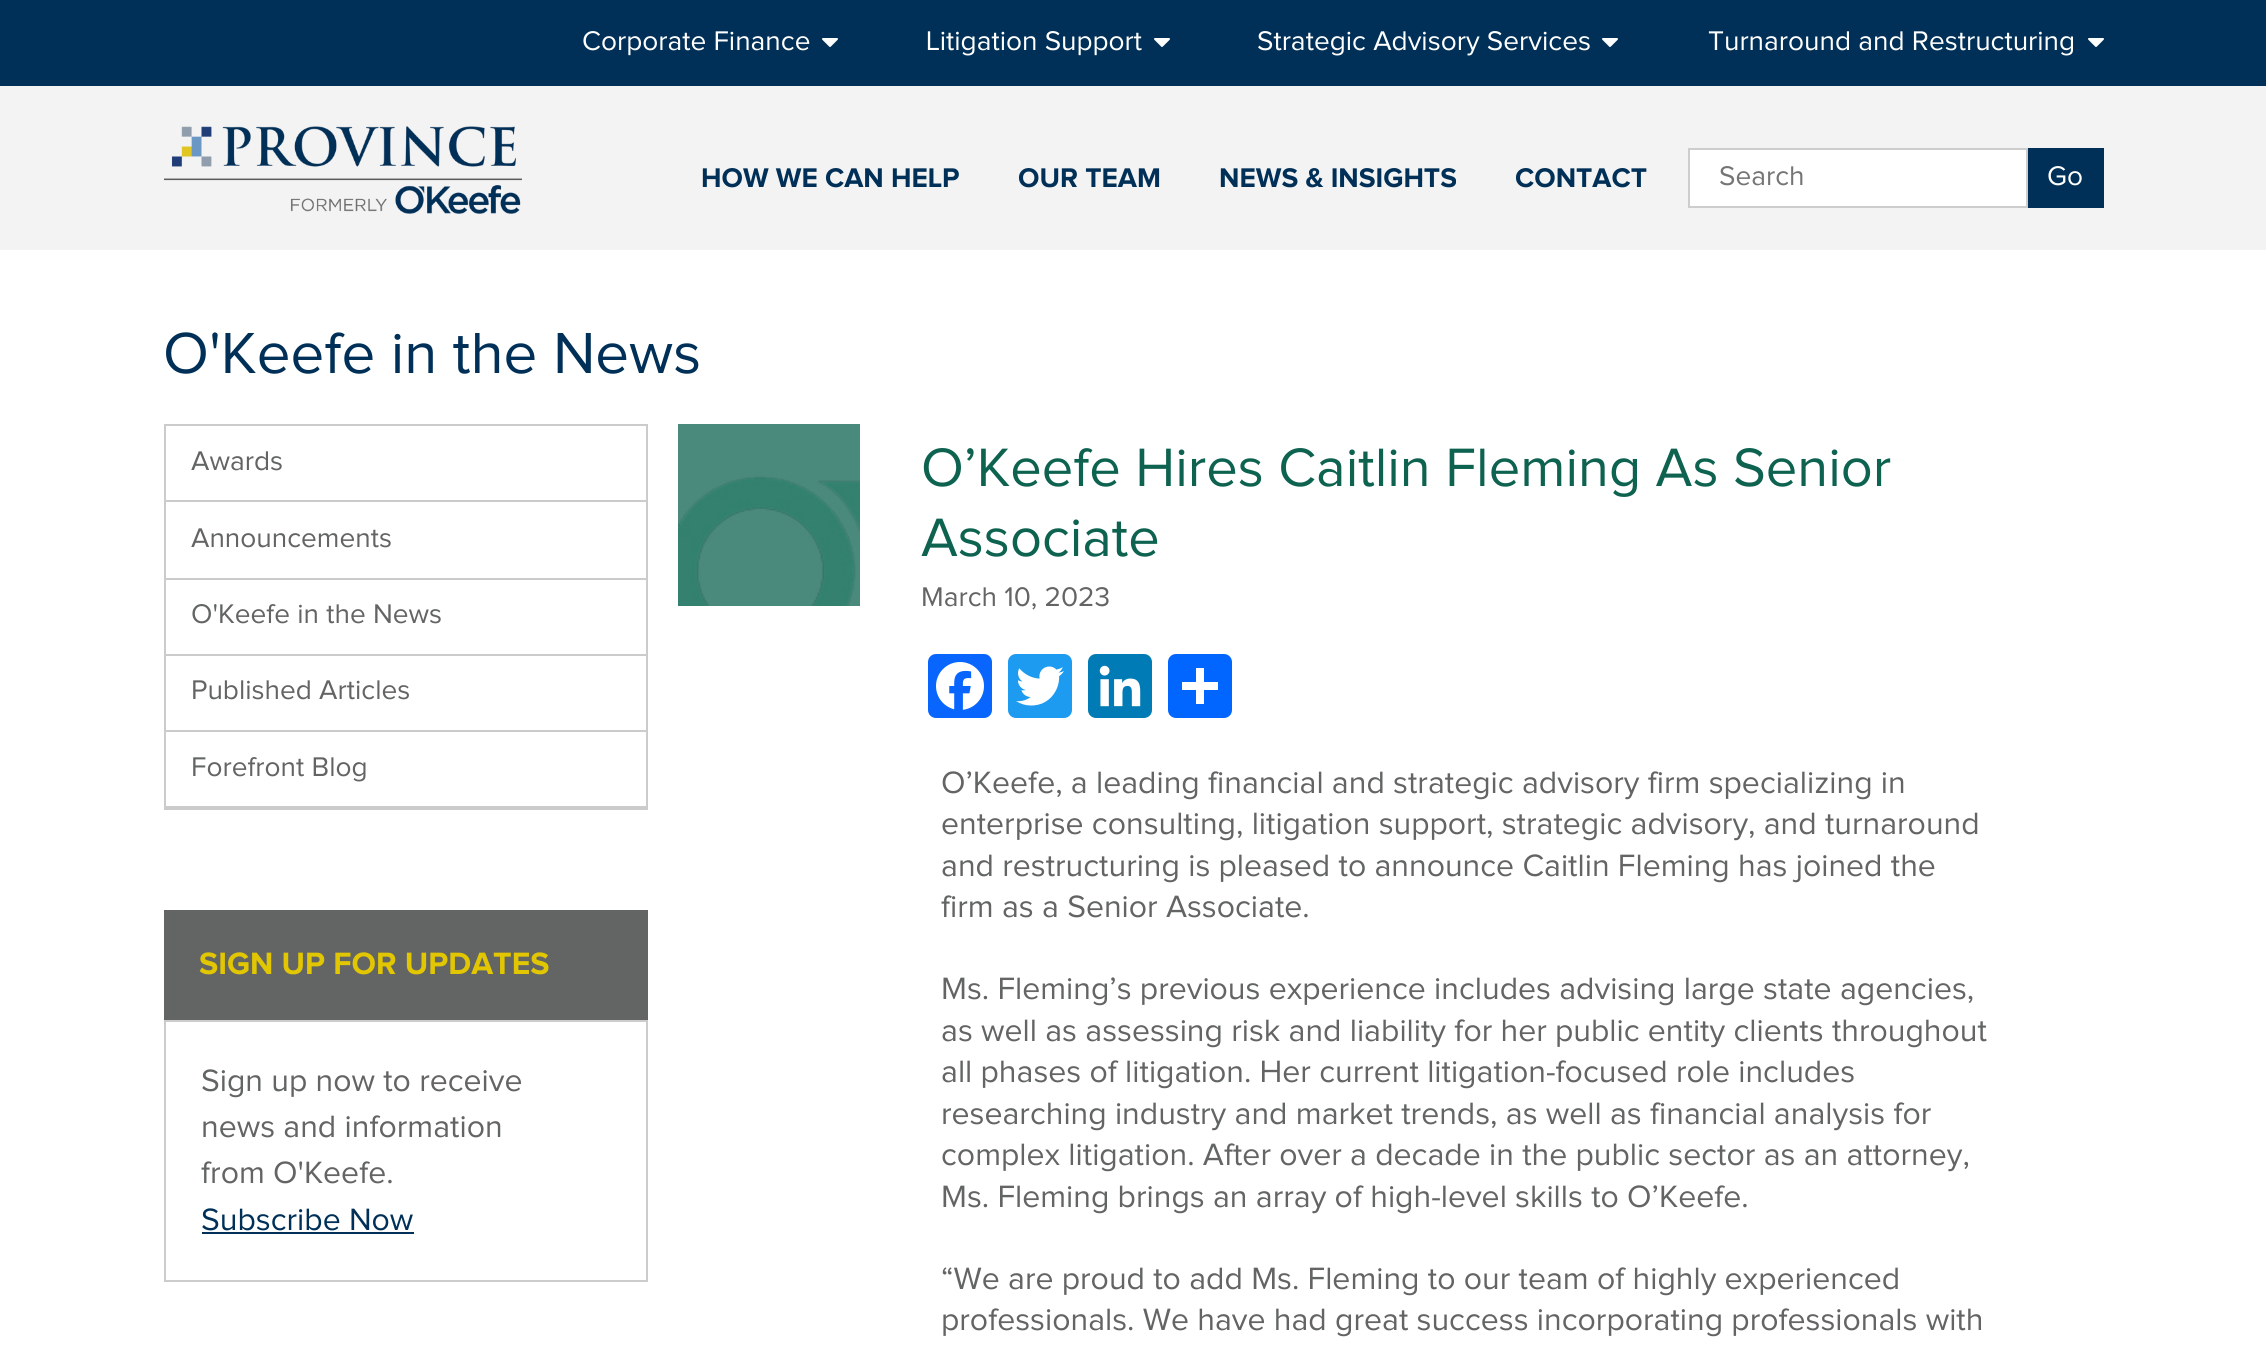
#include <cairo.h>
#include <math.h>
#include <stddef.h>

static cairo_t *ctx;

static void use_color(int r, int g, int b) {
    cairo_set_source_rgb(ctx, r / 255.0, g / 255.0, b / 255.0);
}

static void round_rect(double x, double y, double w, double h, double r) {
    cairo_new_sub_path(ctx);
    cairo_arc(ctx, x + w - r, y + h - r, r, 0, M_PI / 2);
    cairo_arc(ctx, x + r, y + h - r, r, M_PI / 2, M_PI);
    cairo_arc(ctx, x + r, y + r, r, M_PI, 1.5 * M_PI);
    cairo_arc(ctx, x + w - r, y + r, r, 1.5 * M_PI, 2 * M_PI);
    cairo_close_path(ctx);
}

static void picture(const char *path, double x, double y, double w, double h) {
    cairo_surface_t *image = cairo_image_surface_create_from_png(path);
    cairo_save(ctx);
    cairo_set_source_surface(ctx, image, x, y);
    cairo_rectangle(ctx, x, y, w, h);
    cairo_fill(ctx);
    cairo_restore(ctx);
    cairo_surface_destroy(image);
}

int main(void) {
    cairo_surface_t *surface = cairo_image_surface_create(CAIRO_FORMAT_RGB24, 2266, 1346);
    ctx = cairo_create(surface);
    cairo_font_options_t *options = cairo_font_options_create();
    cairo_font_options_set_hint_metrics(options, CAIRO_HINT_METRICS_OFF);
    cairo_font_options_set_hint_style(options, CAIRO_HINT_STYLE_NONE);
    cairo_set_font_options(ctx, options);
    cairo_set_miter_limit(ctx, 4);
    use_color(255, 255, 255);
    cairo_paint(ctx);
    use_color(243, 243, 243);
    cairo_rectangle(ctx, 0, 86, 2266, 164);
    cairo_fill(ctx);
    use_color(0, 48, 87);
    cairo_rectangle(ctx, 0, 0, 2266, 86);
    cairo_fill(ctx);
    cairo_select_font_face(ctx, "Proxima Nova", CAIRO_FONT_SLANT_NORMAL, CAIRO_FONT_WEIGHT_NORMAL);
    cairo_set_font_size(ctx, 28);
    use_color(255, 255, 255);
    cairo_move_to(ctx, 582, 50);
    cairo_show_text(ctx, "Corporate Finance");
    picture("img1.png", 822, 38, 16, 9);
    cairo_move_to(ctx, 926, 50);
    cairo_show_text(ctx, "Litigation Support");
    picture("img1.png", 1154, 38, 16, 9);
    cairo_move_to(ctx, 1257, 50);
    cairo_show_text(ctx, "Strategic Advisory Services");
    picture("img1.png", 1602, 38, 16, 9);
    cairo_move_to(ctx, 1708, 50);
    cairo_show_text(ctx, "Turnaround and Restructuring");
    picture("img1.png", 2088, 38, 16, 9);
    picture("img2.png", 164, 126, 358, 88);
    cairo_select_font_face(ctx, "Proxima Nova", CAIRO_FONT_SLANT_NORMAL, CAIRO_FONT_WEIGHT_BOLD);
    use_color(0, 48, 87);
    cairo_move_to(ctx, 701, 187);
    cairo_show_text(ctx, "HOW WE CAN HELP");
    cairo_move_to(ctx, 1018, 187);
    cairo_show_text(ctx, "OUR TEAM");
    cairo_move_to(ctx, 1219, 187);
    cairo_show_text(ctx, "NEWS & INSIGHTS");
    cairo_move_to(ctx, 1515, 187);
    cairo_show_text(ctx, "CONTACT");
    use_color(255, 255, 255);
    cairo_rectangle(ctx, 1689, 149, 338, 58);
    cairo_fill_preserve(ctx);
    use_color(205, 205, 205);
    cairo_stroke(ctx);
    cairo_select_font_face(ctx, "Proxima Nova", CAIRO_FONT_SLANT_NORMAL, CAIRO_FONT_WEIGHT_NORMAL);
    use_color(117, 117, 117);
    cairo_move_to(ctx, 1719, 185);
    cairo_show_text(ctx, "Search");
    use_color(0, 48, 87);
    cairo_rectangle(ctx, 2028, 148, 76, 60);
    cairo_fill(ctx);
    use_color(255, 255, 255);
    cairo_move_to(ctx, 2047, 185);
    cairo_show_text(ctx, "Go");
    cairo_set_font_size(ctx, 60);
    use_color(0, 48, 87);
    cairo_move_to(ctx, 163, 373);
    cairo_show_text(ctx, "O'Keefe in the News");
    cairo_rectangle(ctx, 165, 425, 482, 384);
    use_color(203, 203, 203);
    cairo_stroke(ctx);
    cairo_rectangle(ctx, 166, 500, 480, 2);
    cairo_fill(ctx);
    cairo_set_font_size(ctx, 28);
    use_color(99, 101, 101);
    cairo_move_to(ctx, 191, 470);
    cairo_show_text(ctx, "Awards");
    use_color(203, 203, 203);
    cairo_rectangle(ctx, 166, 578, 480, 2);
    cairo_fill(ctx);
    use_color(99, 101, 101);
    cairo_move_to(ctx, 191, 547);
    cairo_show_text(ctx, "Announcements");
    use_color(203, 203, 203);
    cairo_rectangle(ctx, 166, 654, 480, 2);
    cairo_fill(ctx);
    use_color(99, 101, 101);
    cairo_move_to(ctx, 191, 623);
    cairo_show_text(ctx, "O'Keefe in the News");
    use_color(203, 203, 203);
    cairo_rectangle(ctx, 166, 730, 480, 2);
    cairo_fill(ctx);
    use_color(99, 101, 101);
    cairo_move_to(ctx, 191, 699);
    cairo_show_text(ctx, "Published Articles");
    use_color(203, 203, 203);
    cairo_rectangle(ctx, 166, 806, 480, 2);
    cairo_fill(ctx);
    use_color(99, 101, 101);
    cairo_move_to(ctx, 191, 776);
    cairo_show_text(ctx, "Forefront Blog");
    cairo_rectangle(ctx, 164, 910, 484, 110);
    cairo_fill(ctx);
    cairo_select_font_face(ctx, "Proxima Nova", CAIRO_FONT_SLANT_NORMAL, CAIRO_FONT_WEIGHT_BOLD);
    cairo_set_font_size(ctx, 32);
    use_color(225, 198, 1);
    cairo_move_to(ctx, 199, 974);
    cairo_show_text(ctx, "SIGN UP FOR UPDATES");
    cairo_rectangle(ctx, 165, 1021, 482, 260);
    use_color(204, 204, 204);
    cairo_stroke(ctx);
    cairo_select_font_face(ctx, "Proxima Nova", CAIRO_FONT_SLANT_NORMAL, CAIRO_FONT_WEIGHT_NORMAL);
    use_color(99, 101, 101);
    cairo_move_to(ctx, 201, 1091);
    cairo_show_text(ctx, "Sign up now to receive");
    cairo_move_to(ctx, 201, 1137);
    cairo_show_text(ctx, "news and information");
    cairo_move_to(ctx, 201, 1183);
    cairo_show_text(ctx, "from O'Keefe.");
    use_color(0, 48, 87);
    cairo_move_to(ctx, 201, 1230);
    cairo_show_text(ctx, "Subscribe Now");
    cairo_rectangle(ctx, 202, 1232, 212, 2);
    cairo_fill(ctx);
    picture("img3.png", 678, 424, 182, 182);
    cairo_set_font_size(ctx, 56);
    use_color(14, 99, 80);
    cairo_move_to(ctx, 921, 486);
    cairo_show_text(ctx, "O’Keefe Hires Caitlin Fleming As Senior");
    cairo_move_to(ctx, 921, 556);
    cairo_show_text(ctx, "Associate");
    cairo_set_font_size(ctx, 28);
    use_color(99, 101, 101);
    cairo_move_to(ctx, 921, 606);
    cairo_show_text(ctx, "March 10, 2023");
    use_color(8, 102, 255);
    round_rect(928, 654, 64, 64, 8);
    cairo_fill(ctx);
    picture("img4.png", 936, 662, 48, 48);
    use_color(29, 155, 240);
    round_rect(1008, 654, 64, 64, 8);
    cairo_fill(ctx);
    picture("img5.png", 1016, 666, 48, 40);
    use_color(0, 123, 181);
    round_rect(1088, 654, 64, 64, 8);
    cairo_fill(ctx);
    picture("img6.png", 1099, 665, 42, 42);
    use_color(1, 102, 255);
    round_rect(1168, 654, 64, 64, 8);
    cairo_fill(ctx);
    use_color(255, 255, 255);
    cairo_rectangle(ctx, 1196, 668, 8, 36);
    cairo_fill(ctx);
    cairo_rectangle(ctx, 1182, 682, 36, 8);
    cairo_fill(ctx);
    cairo_set_font_size(ctx, 32);
    use_color(99, 101, 101);
    cairo_move_to(ctx, 941, 793);
    cairo_show_text(ctx, "O’Keefe, a leading financial and strategic advisory firm specializing in");
    cairo_move_to(ctx, 941, 834);
    cairo_show_text(ctx, "enterprise consulting, litigation support, strategic advisory, and turnaround");
    cairo_move_to(ctx, 941, 876);
    cairo_show_text(ctx, "and restructuring is pleased to announce Caitlin Fleming has joined the");
    cairo_move_to(ctx, 941, 917);
    cairo_show_text(ctx, "firm as a Senior Associate.");
    cairo_move_to(ctx, 941, 999);
    cairo_show_text(ctx, "Ms. Fleming’s previous experience includes advising large state agencies,");
    cairo_move_to(ctx, 941, 1041);
    cairo_show_text(ctx, "as well as assessing risk and liability for her public entity clients throughout");
    cairo_move_to(ctx, 941, 1082);
    cairo_show_text(ctx, "all phases of litigation. Her current litigation-focused role includes");
    cairo_move_to(ctx, 941, 1124);
    cairo_show_text(ctx, "researching industry and market trends, as well as financial analysis for");
    cairo_move_to(ctx, 941, 1165);
    cairo_show_text(ctx, "complex litigation. After over a decade in the public sector as an attorney,");
    cairo_move_to(ctx, 941, 1207);
    cairo_show_text(ctx, "Ms. Fleming brings an array of high-level skills to O’Keefe.");
    cairo_move_to(ctx, 941, 1289);
    cairo_show_text(ctx, "“We are proud to add Ms. Fleming to our team of highly experienced");
    cairo_move_to(ctx, 941, 1330);
    cairo_show_text(ctx, "professionals. We have had great success incorporating professionals with");
    cairo_surface_write_to_png(surface, "result.png");
    cairo_font_options_destroy(options);
    cairo_destroy(ctx);
    cairo_surface_destroy(surface);
    return 0;
}
